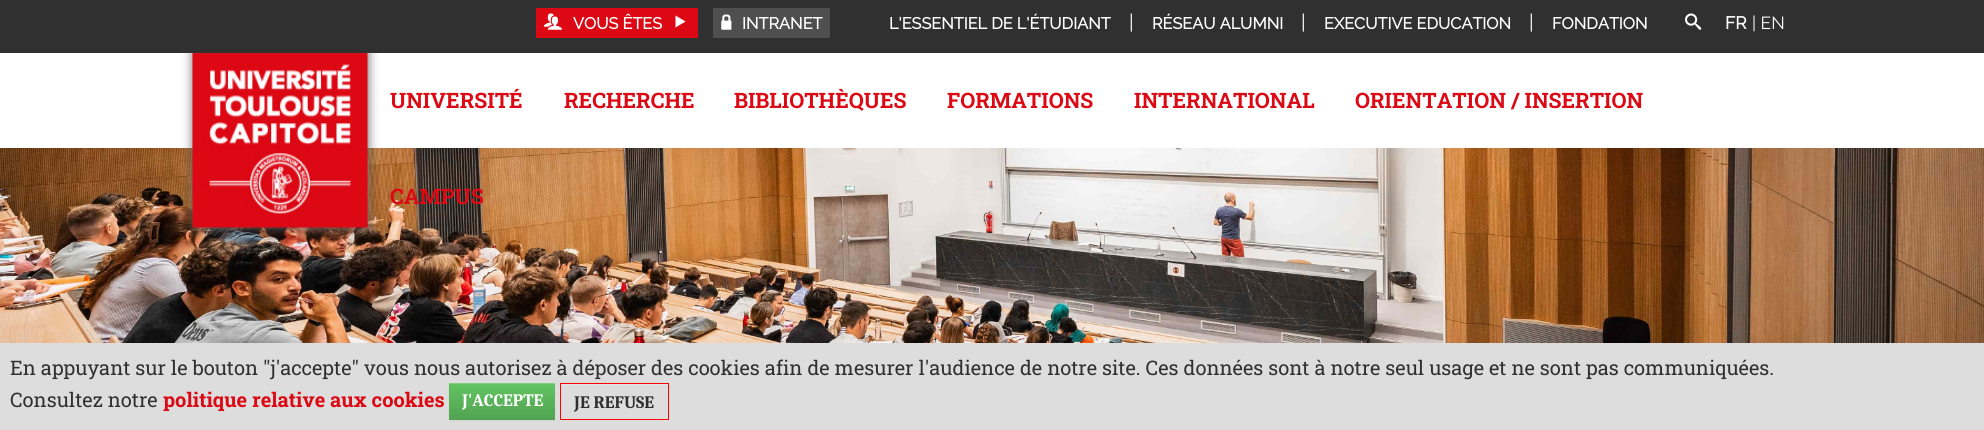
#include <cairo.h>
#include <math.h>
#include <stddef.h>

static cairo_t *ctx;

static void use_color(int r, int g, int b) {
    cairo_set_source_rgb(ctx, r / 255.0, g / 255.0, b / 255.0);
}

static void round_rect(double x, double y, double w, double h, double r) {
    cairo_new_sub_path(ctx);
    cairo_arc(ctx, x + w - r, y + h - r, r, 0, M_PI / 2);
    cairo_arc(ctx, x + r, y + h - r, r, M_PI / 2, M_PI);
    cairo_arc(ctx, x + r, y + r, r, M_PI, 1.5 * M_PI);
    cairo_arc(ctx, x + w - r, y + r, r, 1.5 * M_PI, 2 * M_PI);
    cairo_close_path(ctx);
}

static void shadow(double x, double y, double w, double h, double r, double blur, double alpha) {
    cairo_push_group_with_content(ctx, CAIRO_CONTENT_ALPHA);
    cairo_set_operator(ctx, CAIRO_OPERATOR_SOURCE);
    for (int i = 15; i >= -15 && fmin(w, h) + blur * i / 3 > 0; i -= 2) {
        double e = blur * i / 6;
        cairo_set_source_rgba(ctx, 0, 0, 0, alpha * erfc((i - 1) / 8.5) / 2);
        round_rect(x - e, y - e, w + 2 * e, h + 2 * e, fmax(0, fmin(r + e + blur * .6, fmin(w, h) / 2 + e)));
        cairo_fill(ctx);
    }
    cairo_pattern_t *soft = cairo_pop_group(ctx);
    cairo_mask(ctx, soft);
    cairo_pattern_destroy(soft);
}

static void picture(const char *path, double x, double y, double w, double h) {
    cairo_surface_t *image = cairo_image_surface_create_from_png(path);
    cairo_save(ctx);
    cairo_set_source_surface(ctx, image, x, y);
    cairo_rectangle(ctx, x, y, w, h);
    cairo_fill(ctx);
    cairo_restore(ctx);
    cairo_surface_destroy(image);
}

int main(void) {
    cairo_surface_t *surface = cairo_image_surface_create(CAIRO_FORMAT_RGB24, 1984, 430);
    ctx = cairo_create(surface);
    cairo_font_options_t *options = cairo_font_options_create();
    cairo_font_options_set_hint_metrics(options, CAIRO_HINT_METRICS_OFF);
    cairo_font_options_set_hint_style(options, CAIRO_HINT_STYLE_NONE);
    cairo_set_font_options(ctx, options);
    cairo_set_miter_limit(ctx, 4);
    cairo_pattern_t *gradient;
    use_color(255, 255, 255);
    cairo_paint(ctx);
    picture("img5.png", 0, 148, 1984, 195);
    use_color(101, 101, 101);
    shadow(193, 53, 175, 175, 0, 5.5, 1);
    use_color(48, 48, 48);
    cairo_rectangle(ctx, 0, 0, 1984, 53);
    cairo_fill(ctx);
    use_color(220, 8, 20);
    cairo_rectangle(ctx, 536, 8, 162, 30);
    cairo_fill(ctx);
    picture("img1.png", 543, 13, 19, 17);
    cairo_select_font_face(ctx, "Raleway", CAIRO_FONT_SLANT_NORMAL, CAIRO_FONT_WEIGHT_BOLD);
    cairo_set_font_size(ctx, 16.25);
    use_color(255, 255, 255);
    cairo_move_to(ctx, 573, 29);
    cairo_show_text(ctx, "VOUS ÊTES");
    cairo_new_path(ctx);
    cairo_move_to(ctx, 675.5, 15.5);
    cairo_line_to(ctx, 685.5, 21.5);
    cairo_line_to(ctx, 675.5, 27.5);
    cairo_close_path(ctx);
    cairo_fill(ctx);
    use_color(79, 79, 79);
    cairo_rectangle(ctx, 713, 8, 117, 30);
    cairo_fill(ctx);
    picture("img2.png", 721, 14, 11, 16);
    use_color(255, 255, 255);
    cairo_move_to(ctx, 742, 29);
    cairo_show_text(ctx, "INTRANET");
    cairo_move_to(ctx, 889, 29);
    cairo_show_text(ctx, "L'ESSENTIEL DE L'ÉTUDIANT");
    cairo_select_font_face(ctx, "Raleway", CAIRO_FONT_SLANT_NORMAL, CAIRO_FONT_WEIGHT_NORMAL);
    cairo_set_font_size(ctx, 20);
    cairo_move_to(ctx, 1129, 29);
    cairo_show_text(ctx, "|");
    cairo_select_font_face(ctx, "Raleway", CAIRO_FONT_SLANT_NORMAL, CAIRO_FONT_WEIGHT_BOLD);
    cairo_set_font_size(ctx, 16.25);
    cairo_move_to(ctx, 1152, 29);
    cairo_show_text(ctx, "RÉSEAU ALUMNI");
    cairo_select_font_face(ctx, "Raleway", CAIRO_FONT_SLANT_NORMAL, CAIRO_FONT_WEIGHT_NORMAL);
    cairo_set_font_size(ctx, 20);
    cairo_move_to(ctx, 1301, 29);
    cairo_show_text(ctx, "|");
    cairo_select_font_face(ctx, "Raleway", CAIRO_FONT_SLANT_NORMAL, CAIRO_FONT_WEIGHT_BOLD);
    cairo_set_font_size(ctx, 16.25);
    cairo_move_to(ctx, 1324, 29);
    cairo_show_text(ctx, "EXECUTIVE EDUCATION");
    cairo_select_font_face(ctx, "Raleway", CAIRO_FONT_SLANT_NORMAL, CAIRO_FONT_WEIGHT_NORMAL);
    cairo_set_font_size(ctx, 20);
    cairo_move_to(ctx, 1529, 29);
    cairo_show_text(ctx, "|");
    cairo_select_font_face(ctx, "Raleway", CAIRO_FONT_SLANT_NORMAL, CAIRO_FONT_WEIGHT_BOLD);
    cairo_set_font_size(ctx, 16.25);
    cairo_move_to(ctx, 1552, 29);
    cairo_show_text(ctx, "FONDATION");
    picture("img3.png", 1685, 13, 17, 17);
    cairo_set_font_size(ctx, 17.5);
    cairo_move_to(ctx, 1725, 29);
    cairo_show_text(ctx, "FR");
    cairo_select_font_face(ctx, "Raleway", CAIRO_FONT_SLANT_NORMAL, CAIRO_FONT_WEIGHT_NORMAL);
    cairo_move_to(ctx, 1752, 29);
    cairo_show_text(ctx, "| EN");
    picture("img4.png", 192, 53, 176, 176);
    cairo_select_font_face(ctx, "Roboto Slab", CAIRO_FONT_SLANT_NORMAL, CAIRO_FONT_WEIGHT_BOLD);
    cairo_set_font_size(ctx, 21.25);
    use_color(220, 8, 20);
    cairo_move_to(ctx, 390, 108);
    cairo_show_text(ctx, "UNIVERSITÉ");
    cairo_move_to(ctx, 564, 108);
    cairo_show_text(ctx, "RECHERCHE");
    cairo_move_to(ctx, 734, 108);
    cairo_show_text(ctx, "BIBLIOTHÈQUES");
    cairo_move_to(ctx, 947, 108);
    cairo_show_text(ctx, "FORMATIONS");
    cairo_move_to(ctx, 1134, 108);
    cairo_show_text(ctx, "INTERNATIONAL");
    cairo_move_to(ctx, 1355, 108);
    cairo_show_text(ctx, "ORIENTATION / INSERTION");
    cairo_move_to(ctx, 390, 204);
    cairo_show_text(ctx, "CAMPUS");
    use_color(221, 221, 221);
    cairo_rectangle(ctx, 0, 343, 1984, 87);
    cairo_fill(ctx);
    cairo_select_font_face(ctx, "Roboto Slab", CAIRO_FONT_SLANT_NORMAL, CAIRO_FONT_WEIGHT_NORMAL);
    cairo_set_font_size(ctx, 20);
    use_color(48, 48, 48);
    cairo_move_to(ctx, 10, 375);
    cairo_show_text(ctx, "En appuyant sur le bouton \"j'accepte\" vous nous autorisez à déposer des cookies afin de mesurer l'audience de notre site. Ces données sont à notre seul usage et ne sont pas communiquées.");
    cairo_move_to(ctx, 10, 407);
    cairo_show_text(ctx, "Consultez notre");
    cairo_select_font_face(ctx, "Roboto Slab", CAIRO_FONT_SLANT_NORMAL, CAIRO_FONT_WEIGHT_BOLD);
    use_color(220, 8, 20);
    cairo_move_to(ctx, 163, 407);
    cairo_show_text(ctx, "politique relative aux cookies");
    use_color(0, 0, 0);
    shadow(449, 384, 106, 37, 0, 1, 0.05);
    gradient = cairo_pattern_create_linear(502, 383, 502, 420);
    cairo_pattern_add_color_stop_rgba(gradient, 0, 0.384, 0.769, 0.384, 1);
    cairo_pattern_add_color_stop_rgba(gradient, 1, 0.318, 0.639, 0.318, 1);
    cairo_set_source(ctx, gradient);
    cairo_pattern_destroy(gradient);
    cairo_rectangle(ctx, 449, 384, 106, 36);
    cairo_fill(ctx);
    use_color(129, 208, 129);
    cairo_rectangle(ctx, 449, 383, 106, 1);
    cairo_fill(ctx);
    cairo_select_font_face(ctx, "Caladea", CAIRO_FONT_SLANT_NORMAL, CAIRO_FONT_WEIGHT_BOLD);
    cairo_set_font_size(ctx, 17.5);
    use_color(255, 255, 255);
    cairo_move_to(ctx, 462, 406);
    cairo_show_text(ctx, "J'ACCEPTE");
    use_color(228, 228, 228);
    cairo_rectangle(ctx, 561, 384, 107, 1);
    cairo_fill(ctx);
    cairo_rectangle(ctx, 560.5, 383.5, 108, 36);
    use_color(255, 0, 0);
    cairo_set_line_width(ctx, 1);
    cairo_stroke(ctx);
    use_color(48, 48, 48);
    cairo_move_to(ctx, 574, 408);
    cairo_show_text(ctx, "JE REFUSE");
    cairo_surface_write_to_png(surface, "result.png");
    cairo_font_options_destroy(options);
    cairo_destroy(ctx);
    cairo_surface_destroy(surface);
    return 0;
}
